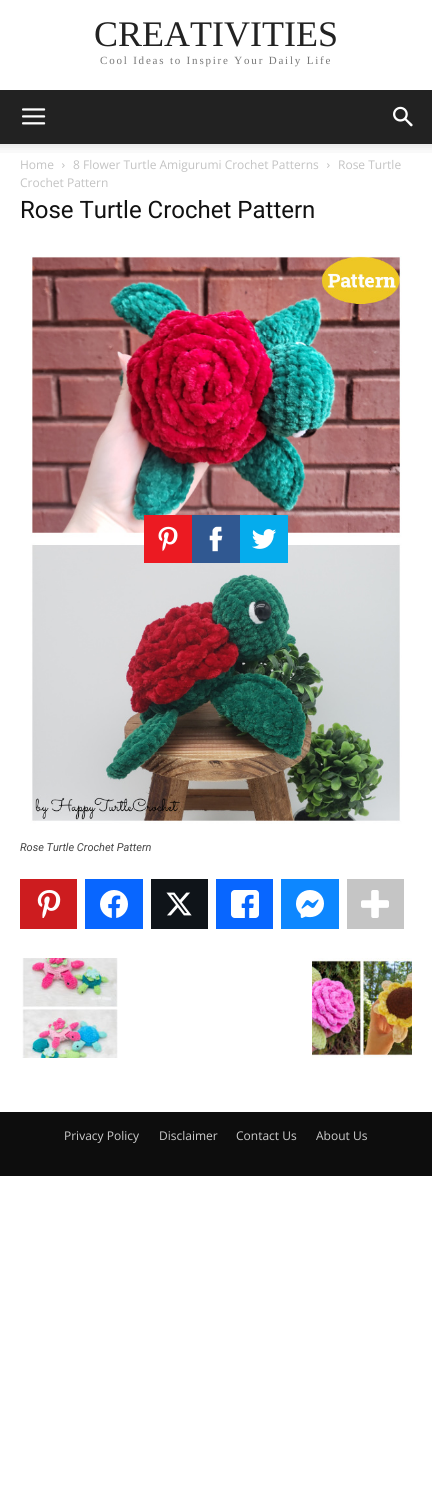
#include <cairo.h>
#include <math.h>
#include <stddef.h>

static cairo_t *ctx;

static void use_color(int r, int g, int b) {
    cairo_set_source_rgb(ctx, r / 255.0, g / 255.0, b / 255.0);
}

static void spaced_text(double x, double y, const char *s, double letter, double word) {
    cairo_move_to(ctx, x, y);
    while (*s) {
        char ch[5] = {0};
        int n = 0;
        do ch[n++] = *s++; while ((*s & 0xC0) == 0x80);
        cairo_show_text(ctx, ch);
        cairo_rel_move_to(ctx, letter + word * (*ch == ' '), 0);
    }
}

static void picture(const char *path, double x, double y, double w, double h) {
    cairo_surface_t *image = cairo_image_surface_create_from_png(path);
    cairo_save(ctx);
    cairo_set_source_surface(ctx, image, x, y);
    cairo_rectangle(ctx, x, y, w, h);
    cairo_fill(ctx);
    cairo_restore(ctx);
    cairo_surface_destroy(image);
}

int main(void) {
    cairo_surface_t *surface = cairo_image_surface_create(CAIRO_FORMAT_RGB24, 432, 1511);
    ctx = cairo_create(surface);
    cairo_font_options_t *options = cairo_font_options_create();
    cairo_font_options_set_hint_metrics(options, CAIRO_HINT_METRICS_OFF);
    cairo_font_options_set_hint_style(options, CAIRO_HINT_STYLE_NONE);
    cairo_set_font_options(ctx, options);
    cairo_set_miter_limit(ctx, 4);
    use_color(255, 255, 255);
    cairo_paint(ctx);
    cairo_select_font_face(ctx, "Liberation Serif", CAIRO_FONT_SLANT_NORMAL, CAIRO_FONT_WEIGHT_NORMAL);
    cairo_set_font_size(ctx, 36);
    use_color(34, 34, 34);
    cairo_move_to(ctx, 94, 46);
    cairo_show_text(ctx, "CREATIVITIES");
    cairo_set_font_size(ctx, 11);
    use_color(119, 119, 119);
    spaced_text(100, 64, "Cool Ideas to Inspire Your Daily Life", 1.8, 0);
    use_color(34, 34, 34);
    cairo_rectangle(ctx, 0, 90, 432, 54);
    cairo_fill(ctx);
    picture("img1.png", 22, 108, 24, 17);
    picture("img2.png", 393, 106, 20, 21);
    picture("img3.png", 0, 144, 432, 9);
    cairo_select_font_face(ctx, "Open Sans", CAIRO_FONT_SLANT_NORMAL, CAIRO_FONT_WEIGHT_NORMAL);
    cairo_set_font_size(ctx, 12);
    use_color(195, 195, 195);
    cairo_move_to(ctx, 20, 169);
    cairo_show_text(ctx, "Home");
    picture("img4.png", 62, 163, 3, 5);
    cairo_move_to(ctx, 73, 169);
    cairo_show_text(ctx, "8 Flower Turtle Amigurumi Crochet Patterns");
    picture("img4.png", 327, 163, 3, 5);
    cairo_move_to(ctx, 338, 169);
    cairo_show_text(ctx, "Rose Turtle");
    cairo_move_to(ctx, 20, 187);
    cairo_show_text(ctx, "Crochet Pattern");
    cairo_select_font_face(ctx, "Roboto", CAIRO_FONT_SLANT_NORMAL, CAIRO_FONT_WEIGHT_NORMAL);
    cairo_set_font_size(ctx, 24);
    use_color(17, 17, 17);
    cairo_move_to(ctx, 20, 218);
    cairo_show_text(ctx, "Rose Turtle Crochet Pattern");
    picture("img5.png", 30, 256, 372, 568);
    use_color(236, 26, 34);
    cairo_rectangle(ctx, 144, 515, 48, 48);
    cairo_fill(ctx);
    picture("img6.png", 158, 526, 20, 26);
    use_color(48, 88, 145);
    cairo_rectangle(ctx, 192, 515, 48, 48);
    cairo_fill(ctx);
    picture("img7.png", 209, 526, 14, 26);
    use_color(5, 172, 237);
    cairo_rectangle(ctx, 240, 515, 48, 48);
    cairo_fill(ctx);
    picture("img8.png", 252, 529, 24, 20);
    cairo_select_font_face(ctx, "Roboto", CAIRO_FONT_SLANT_ITALIC, CAIRO_FONT_WEIGHT_NORMAL);
    cairo_set_font_size(ctx, 11);
    use_color(68, 68, 68);
    cairo_move_to(ctx, 20, 851);
    cairo_show_text(ctx, "Rose Turtle Crochet Pattern");
    use_color(205, 28, 31);
    cairo_rectangle(ctx, 20, 879, 57, 50);
    cairo_fill(ctx);
    picture("img9.png", 37, 890, 24, 28);
    use_color(8, 102, 255);
    cairo_rectangle(ctx, 85, 879, 58, 50);
    cairo_fill(ctx);
    picture("img10.png", 100, 890, 28, 28);
    use_color(15, 20, 25);
    cairo_rectangle(ctx, 151, 879, 57, 50);
    cairo_fill(ctx);
    picture("img11.png", 166, 892, 26, 24);
    use_color(8, 102, 255);
    cairo_rectangle(ctx, 216, 879, 57, 50);
    cairo_fill(ctx);
    picture("img12.png", 231, 890, 28, 28);
    use_color(13, 135, 255);
    cairo_rectangle(ctx, 281, 879, 58, 50);
    cairo_fill(ctx);
    picture("img13.png", 296, 890, 28, 28);
    use_color(197, 197, 197);
    cairo_rectangle(ctx, 347, 879, 57, 50);
    cairo_fill(ctx);
    picture("img14.png", 361, 890, 28, 28);
    picture("img15.png", 22, 958, 96, 100);
    picture("img16.png", 312, 958, 100, 100);
    use_color(13, 13, 13);
    cairo_rectangle(ctx, 0, 1112, 432, 64);
    cairo_fill(ctx);
    cairo_select_font_face(ctx, "Open Sans", CAIRO_FONT_SLANT_NORMAL, CAIRO_FONT_WEIGHT_NORMAL);
    cairo_set_font_size(ctx, 12);
    use_color(204, 204, 204);
    cairo_move_to(ctx, 64, 1140);
    cairo_show_text(ctx, "Privacy Policy");
    cairo_move_to(ctx, 159, 1140);
    cairo_show_text(ctx, "Disclaimer");
    cairo_move_to(ctx, 236, 1140);
    cairo_show_text(ctx, "Contact Us");
    cairo_move_to(ctx, 316, 1140);
    cairo_show_text(ctx, "About Us");
    cairo_surface_write_to_png(surface, "result.png");
    cairo_font_options_destroy(options);
    cairo_destroy(ctx);
    cairo_surface_destroy(surface);
    return 0;
}
